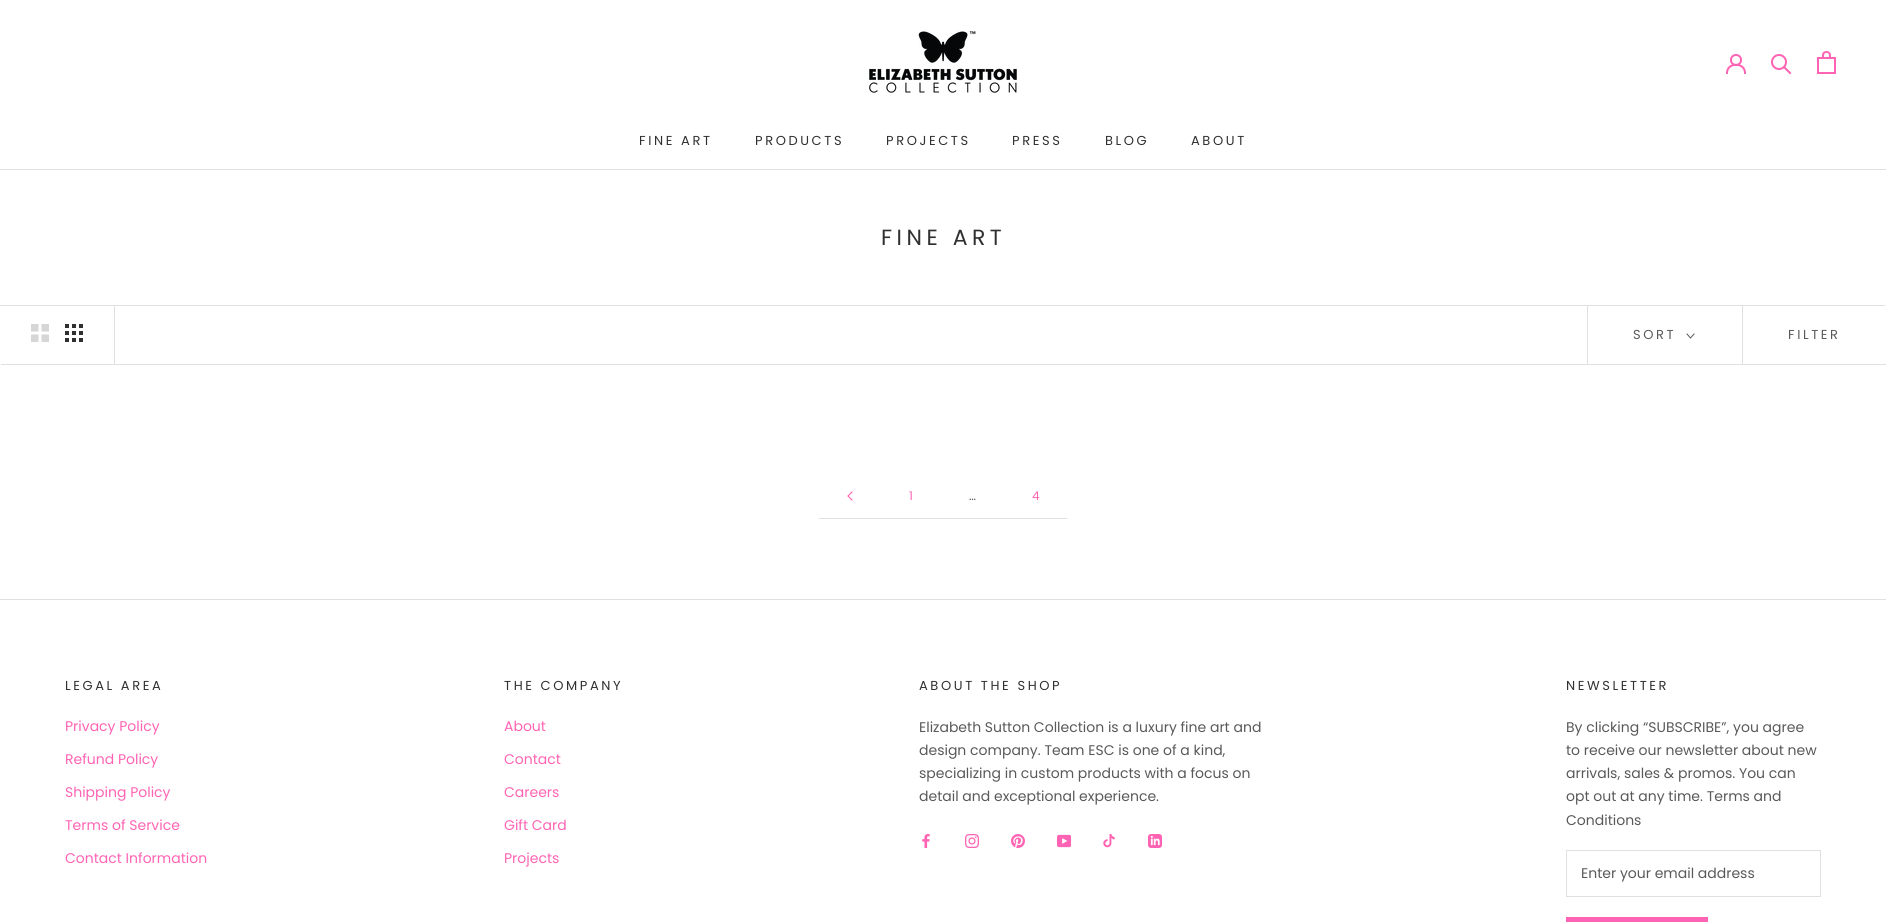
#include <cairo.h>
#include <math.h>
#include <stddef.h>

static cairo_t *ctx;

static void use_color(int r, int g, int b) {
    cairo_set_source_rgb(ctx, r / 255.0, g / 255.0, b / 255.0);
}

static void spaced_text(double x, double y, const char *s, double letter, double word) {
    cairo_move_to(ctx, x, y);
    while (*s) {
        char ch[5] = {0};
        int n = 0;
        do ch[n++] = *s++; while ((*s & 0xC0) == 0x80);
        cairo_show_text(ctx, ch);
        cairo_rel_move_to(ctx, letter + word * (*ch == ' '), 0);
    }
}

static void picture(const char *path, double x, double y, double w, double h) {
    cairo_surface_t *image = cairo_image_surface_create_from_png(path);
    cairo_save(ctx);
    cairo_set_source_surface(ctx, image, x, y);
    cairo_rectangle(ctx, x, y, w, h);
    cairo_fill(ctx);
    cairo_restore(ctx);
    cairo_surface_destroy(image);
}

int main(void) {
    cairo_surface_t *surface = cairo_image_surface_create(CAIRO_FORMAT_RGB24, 1886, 922);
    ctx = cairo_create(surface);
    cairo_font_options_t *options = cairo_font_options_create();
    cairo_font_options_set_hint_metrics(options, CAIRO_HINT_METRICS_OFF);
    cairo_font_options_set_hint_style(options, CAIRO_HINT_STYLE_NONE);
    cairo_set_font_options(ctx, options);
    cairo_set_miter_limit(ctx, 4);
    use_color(255, 255, 255);
    cairo_paint(ctx);
    use_color(224, 224, 224);
    cairo_rectangle(ctx, 0, 169, 1886, 1);
    cairo_fill(ctx);
    picture("img1.png", 869, 31, 148, 62);
    cairo_new_path(ctx);
    cairo_move_to(ctx, 1727, 73);
    cairo_curve_to(ctx, 1727, 62, 1745, 62, 1745, 73);
    use_color(255, 99, 179);
    cairo_set_line_cap(ctx, CAIRO_LINE_CAP_SQUARE);
    cairo_stroke(ctx);
    cairo_arc(ctx, 1736, 60, 5, 0, 2 * M_PI);
    cairo_set_line_cap(ctx, CAIRO_LINE_CAP_BUTT);
    cairo_stroke(ctx);
    cairo_new_path(ctx);
    cairo_move_to(ctx, 1790, 73);
    cairo_line_to(ctx, 1784.5, 67.5);
    cairo_set_line_cap(ctx, CAIRO_LINE_CAP_SQUARE);
    cairo_stroke(ctx);
    cairo_arc(ctx, 1779, 62, 7, 0, 2 * M_PI);
    cairo_set_line_cap(ctx, CAIRO_LINE_CAP_BUTT);
    cairo_stroke(ctx);
    picture("img2.png", 1817, 51, 19, 23);
    cairo_select_font_face(ctx, "Poppins", CAIRO_FONT_SLANT_NORMAL, CAIRO_FONT_WEIGHT_NORMAL);
    cairo_set_font_size(ctx, 13);
    use_color(48, 48, 48);
    spaced_text(639, 145, "FINE ART", 2.6, 0);
    spaced_text(755, 145, "PRODUCTS", 2.6, 0);
    spaced_text(886, 145, "PROJECTS", 2.6, 0);
    spaced_text(1012, 145, "PRESS", 2.6, 0);
    spaced_text(1105, 145, "BLOG", 2.6, 0);
    spaced_text(1191, 145, "ABOUT", 2.6, 0);
    cairo_set_font_size(ctx, 22);
    spaced_text(881, 245, "FINE ART", 4.5, 0);
    use_color(224, 224, 224);
    cairo_new_path(ctx);
    cairo_move_to(ctx, -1, 305);
    cairo_line_to(ctx, -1, 363);
    cairo_line_to(ctx, 0, 363);
    cairo_line_to(ctx, 0, 306);
    cairo_line_to(ctx, 1885, 306);
    cairo_line_to(ctx, 1885, 305);
    cairo_close_path(ctx);
    cairo_fill(ctx);
    cairo_new_path(ctx);
    cairo_move_to(ctx, 1, 364);
    cairo_line_to(ctx, 1, 365);
    cairo_line_to(ctx, 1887, 365);
    cairo_line_to(ctx, 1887, 307);
    cairo_line_to(ctx, 1886, 307);
    cairo_line_to(ctx, 1886, 364);
    cairo_close_path(ctx);
    cairo_fill(ctx);
    cairo_rectangle(ctx, 114, 306, 1, 58);
    cairo_fill(ctx);
    picture("img3.png", 31, 324, 18, 18);
    picture("img4.png", 65, 324, 18, 18);
    cairo_rectangle(ctx, 1587, 306, 1, 58);
    cairo_fill(ctx);
    cairo_set_font_size(ctx, 13);
    use_color(89, 89, 89);
    spaced_text(1633, 339, "SORT", 2.6, 0);
    cairo_new_path(ctx);
    cairo_move_to(ctx, 1694, 334);
    cairo_line_to(ctx, 1690.5, 338);
    cairo_line_to(ctx, 1687, 334);
    cairo_set_line_width(ctx, 1);
    cairo_set_line_cap(ctx, CAIRO_LINE_CAP_SQUARE);
    cairo_stroke(ctx);
    use_color(224, 224, 224);
    cairo_rectangle(ctx, 1742, 306, 1, 58);
    cairo_fill(ctx);
    use_color(89, 89, 89);
    spaced_text(1788, 339, "FILTER", 2.6, 0);
    use_color(224, 224, 224);
    cairo_rectangle(ctx, 819, 518, 248, 1);
    cairo_fill(ctx);
    cairo_new_path(ctx);
    cairo_move_to(ctx, 852, 492);
    cairo_line_to(ctx, 848, 496);
    cairo_line_to(ctx, 852, 500);
    use_color(255, 99, 179);
    cairo_set_line_width(ctx, 1.1);
    cairo_stroke(ctx);
    cairo_set_font_size(ctx, 12);
    cairo_move_to(ctx, 909, 500);
    cairo_show_text(ctx, "1");
    use_color(89, 89, 89);
    cairo_move_to(ctx, 969, 500);
    cairo_show_text(ctx, "…");
    use_color(255, 99, 179);
    cairo_move_to(ctx, 1032, 500);
    cairo_show_text(ctx, "4");
    use_color(224, 224, 224);
    cairo_rectangle(ctx, 0, 599, 1886, 1);
    cairo_fill(ctx);
    cairo_set_font_size(ctx, 13);
    use_color(48, 48, 48);
    spaced_text(65, 690, "LEGAL AREA", 2.6, 0);
    cairo_set_font_size(ctx, 14);
    use_color(255, 99, 179);
    cairo_move_to(ctx, 65, 731);
    cairo_show_text(ctx, "Privacy Policy");
    cairo_move_to(ctx, 65, 764);
    cairo_show_text(ctx, "Refund Policy");
    cairo_move_to(ctx, 65, 797);
    cairo_show_text(ctx, "Shipping Policy");
    cairo_move_to(ctx, 65, 830);
    cairo_show_text(ctx, "Terms of Service");
    cairo_move_to(ctx, 65, 863);
    cairo_show_text(ctx, "Contact Information");
    cairo_set_font_size(ctx, 13);
    use_color(48, 48, 48);
    spaced_text(504, 690, "THE COMPANY", 2.6, 0);
    cairo_set_font_size(ctx, 14);
    use_color(255, 99, 179);
    cairo_move_to(ctx, 504, 731);
    cairo_show_text(ctx, "About");
    cairo_move_to(ctx, 504, 764);
    cairo_show_text(ctx, "Contact");
    cairo_move_to(ctx, 504, 797);
    cairo_show_text(ctx, "Careers");
    cairo_move_to(ctx, 504, 830);
    cairo_show_text(ctx, "Gift Card");
    cairo_move_to(ctx, 504, 863);
    cairo_show_text(ctx, "Projects");
    cairo_set_font_size(ctx, 13);
    use_color(48, 48, 48);
    spaced_text(919, 690, "ABOUT THE SHOP", 2.6, 0);
    cairo_set_font_size(ctx, 14);
    use_color(89, 89, 89);
    cairo_move_to(ctx, 919, 732);
    cairo_show_text(ctx, "Elizabeth Sutton Collection is a luxury fine art and");
    cairo_move_to(ctx, 919, 755);
    cairo_show_text(ctx, "design company. Team ESC is one of a kind,");
    cairo_move_to(ctx, 919, 778);
    cairo_show_text(ctx, "specializing in custom products with a focus on");
    cairo_move_to(ctx, 919, 801);
    cairo_show_text(ctx, "detail and exceptional experience.");
    picture("img5.png", 922, 834, 8, 14);
    picture("img6.png", 965, 834, 14, 14);
    picture("img7.png", 1011, 834, 14, 14);
    picture("img8.png", 1057, 834, 14, 14);
    picture("img9.png", 1103, 834, 12, 14);
    picture("img10.png", 1148, 834, 14, 14);
    cairo_set_font_size(ctx, 13);
    use_color(48, 48, 48);
    spaced_text(1566, 690, "NEWSLETTER", 2.6, 0);
    cairo_set_font_size(ctx, 14);
    use_color(89, 89, 89);
    cairo_move_to(ctx, 1566, 732);
    cairo_show_text(ctx, "By clicking “SUBSCRIBE”, you agree");
    cairo_move_to(ctx, 1566, 755);
    cairo_show_text(ctx, "to receive our newsletter about new");
    cairo_move_to(ctx, 1566, 778);
    cairo_show_text(ctx, "arrivals, sales & promos. You can");
    cairo_move_to(ctx, 1566, 801);
    cairo_show_text(ctx, "opt out at any time. Terms and");
    cairo_move_to(ctx, 1566, 825);
    cairo_show_text(ctx, "Conditions");
    cairo_rectangle(ctx, 1566.5, 850.5, 254, 46);
    use_color(224, 224, 224);
    cairo_set_line_width(ctx, 1);
    cairo_set_line_cap(ctx, CAIRO_LINE_CAP_BUTT);
    cairo_stroke(ctx);
    use_color(89, 89, 89);
    cairo_move_to(ctx, 1581, 878);
    cairo_show_text(ctx, "Enter your email address");
    cairo_rectangle(ctx, 1566.5, 917.5, 141, 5);
    use_color(255, 99, 179);
    cairo_stroke(ctx);
    cairo_rectangle(ctx, 1567, 918, 140, 4);
    cairo_fill(ctx);
    cairo_surface_write_to_png(surface, "result.png");
    cairo_font_options_destroy(options);
    cairo_destroy(ctx);
    cairo_surface_destroy(surface);
    return 0;
}
